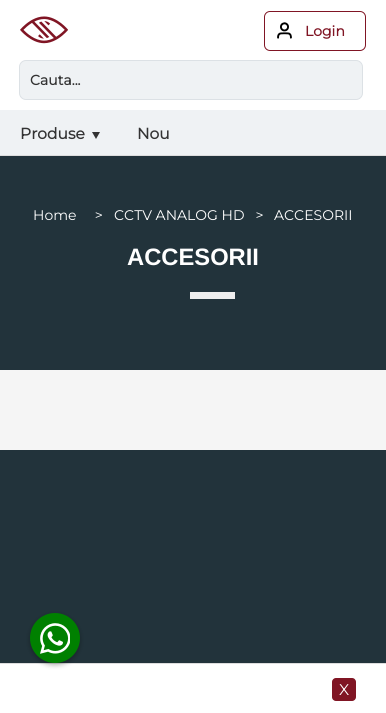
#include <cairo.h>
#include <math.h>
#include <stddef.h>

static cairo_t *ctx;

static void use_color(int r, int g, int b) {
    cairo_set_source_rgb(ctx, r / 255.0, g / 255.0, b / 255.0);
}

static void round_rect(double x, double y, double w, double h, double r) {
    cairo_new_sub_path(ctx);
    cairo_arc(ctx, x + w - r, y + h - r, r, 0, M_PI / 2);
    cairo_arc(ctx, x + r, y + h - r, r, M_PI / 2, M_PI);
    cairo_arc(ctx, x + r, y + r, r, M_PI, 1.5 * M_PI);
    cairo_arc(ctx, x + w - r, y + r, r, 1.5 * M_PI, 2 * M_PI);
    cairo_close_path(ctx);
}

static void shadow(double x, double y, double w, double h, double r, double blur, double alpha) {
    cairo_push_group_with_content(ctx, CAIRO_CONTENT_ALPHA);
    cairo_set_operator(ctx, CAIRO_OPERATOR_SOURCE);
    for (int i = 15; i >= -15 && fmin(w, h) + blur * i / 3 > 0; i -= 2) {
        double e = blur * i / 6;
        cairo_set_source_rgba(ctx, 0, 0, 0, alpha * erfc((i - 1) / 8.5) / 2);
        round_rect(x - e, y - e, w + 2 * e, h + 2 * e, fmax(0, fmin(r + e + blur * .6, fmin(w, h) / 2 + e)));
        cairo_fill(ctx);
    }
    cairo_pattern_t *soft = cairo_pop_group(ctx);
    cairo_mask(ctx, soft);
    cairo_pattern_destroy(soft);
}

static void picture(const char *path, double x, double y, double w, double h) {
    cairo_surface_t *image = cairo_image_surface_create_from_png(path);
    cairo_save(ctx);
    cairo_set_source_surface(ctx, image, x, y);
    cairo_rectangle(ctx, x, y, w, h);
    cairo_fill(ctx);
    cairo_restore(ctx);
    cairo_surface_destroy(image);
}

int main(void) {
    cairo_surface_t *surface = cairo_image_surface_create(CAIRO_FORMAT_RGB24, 386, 713);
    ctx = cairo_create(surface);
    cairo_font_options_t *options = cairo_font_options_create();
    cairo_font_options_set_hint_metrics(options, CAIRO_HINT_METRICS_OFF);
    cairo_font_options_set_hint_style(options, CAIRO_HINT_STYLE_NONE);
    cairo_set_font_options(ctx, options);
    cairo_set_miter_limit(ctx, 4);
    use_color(34, 51, 59);
    cairo_paint(ctx);
    use_color(255, 255, 255);
    cairo_rectangle(ctx, 0, 0, 386, 110);
    cairo_fill(ctx);
    use_color(221, 221, 221);
    cairo_rectangle(ctx, 0, 155, 386, 1);
    cairo_fill(ctx);
    picture("img1.png", 20, 16, 48, 28);
    round_rect(264.5, 11.5, 101, 39, 5.5);
    use_color(128, 21, 36);
    cairo_set_line_width(ctx, 1);
    cairo_stroke(ctx);
    picture("img2.png", 277, 22, 15, 17);
    cairo_select_font_face(ctx, "Montserrat", CAIRO_FONT_SLANT_NORMAL, CAIRO_FONT_WEIGHT_BOLD);
    cairo_set_font_size(ctx, 14);
    cairo_move_to(ctx, 305, 36);
    cairo_show_text(ctx, "Login");
    use_color(239, 242, 244);
    round_rect(19.5, 60.5, 343, 39, 6.5);
    cairo_fill_preserve(ctx);
    use_color(220, 225, 229);
    cairo_stroke(ctx);
    use_color(51, 51, 51);
    cairo_move_to(ctx, 30, 85);
    cairo_show_text(ctx, "Cauta...");
    use_color(239, 242, 244);
    cairo_rectangle(ctx, 0, 110, 386, 45);
    cairo_fill(ctx);
    cairo_set_font_size(ctx, 15.5);
    use_color(51, 51, 51);
    cairo_move_to(ctx, 20, 139);
    cairo_show_text(ctx, "Produse");
    cairo_new_path(ctx);
    cairo_move_to(ctx, 92, 132);
    cairo_line_to(ctx, 100, 132);
    cairo_line_to(ctx, 96, 139);
    cairo_close_path(ctx);
    cairo_fill(ctx);
    cairo_move_to(ctx, 137, 139);
    cairo_show_text(ctx, "Nou");
    cairo_select_font_face(ctx, "Montserrat Thin", CAIRO_FONT_SLANT_NORMAL, CAIRO_FONT_WEIGHT_NORMAL);
    cairo_set_font_size(ctx, 14);
    use_color(255, 255, 255);
    cairo_move_to(ctx, 33, 220);
    cairo_show_text(ctx, "Home     >");
    cairo_move_to(ctx, 114, 220);
    cairo_show_text(ctx, "CCTV ANALOG HD   >");
    cairo_move_to(ctx, 274, 220);
    cairo_show_text(ctx, "ACCESORII");
    cairo_select_font_face(ctx, "Liberation Sans", CAIRO_FONT_SLANT_NORMAL, CAIRO_FONT_WEIGHT_BOLD);
    cairo_set_font_size(ctx, 23.75);
    cairo_move_to(ctx, 127, 265);
    cairo_show_text(ctx, "ACCESORII");
    use_color(238, 238, 238);
    cairo_rectangle(ctx, 190, 292, 45, 7);
    cairo_fill(ctx);
    use_color(245, 245, 245);
    cairo_rectangle(ctx, 0, 370, 386, 80);
    cairo_fill(ctx);
    use_color(255, 255, 255);
    cairo_rectangle(ctx, 0, 664, 386, 49);
    cairo_fill(ctx);
    use_color(221, 221, 221);
    cairo_rectangle(ctx, 0, 663, 386, 1);
    cairo_fill(ctx);
    use_color(0, 0, 0);
    shadow(30, 615, 50, 50, 25, 2.5, 0.3);
    use_color(0, 128, 0);
    cairo_arc(ctx, 55, 638, 25, 0, 2 * M_PI);
    cairo_fill(ctx);
    picture("img3.png", 40, 623, 30, 31);
    use_color(128, 21, 36);
    round_rect(332, 678, 24, 23, 4);
    cairo_fill(ctx);
    cairo_select_font_face(ctx, "Montserrat Thin", CAIRO_FONT_SLANT_NORMAL, CAIRO_FONT_WEIGHT_NORMAL);
    cairo_set_font_size(ctx, 15.5);
    use_color(255, 255, 255);
    cairo_move_to(ctx, 339, 695);
    cairo_show_text(ctx, "X");
    cairo_surface_write_to_png(surface, "result.png");
    cairo_font_options_destroy(options);
    cairo_destroy(ctx);
    cairo_surface_destroy(surface);
    return 0;
}
